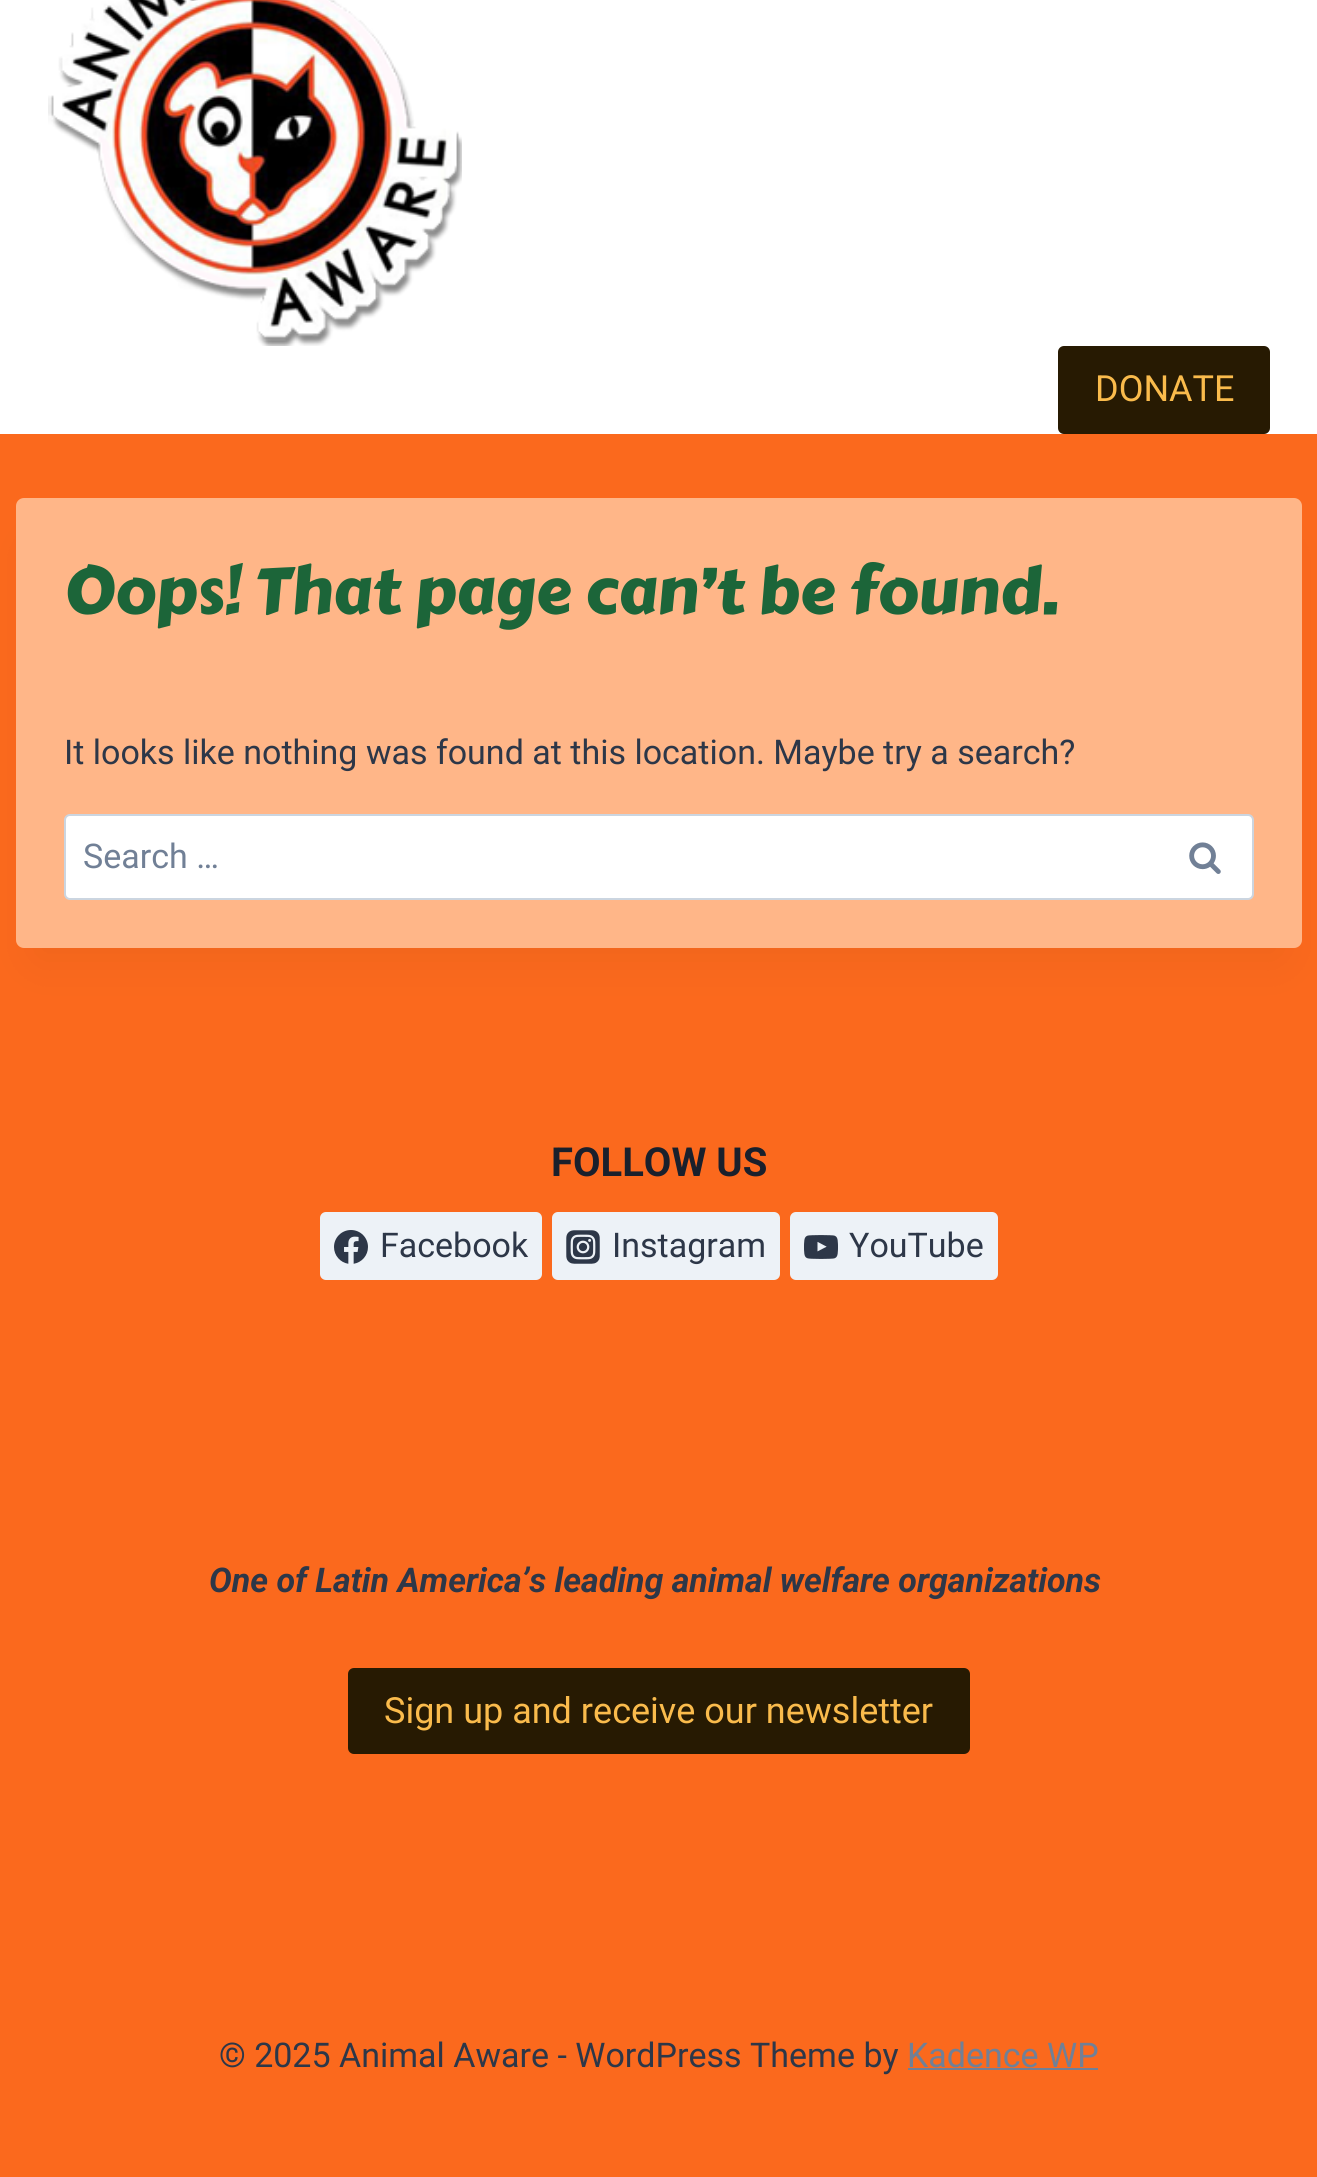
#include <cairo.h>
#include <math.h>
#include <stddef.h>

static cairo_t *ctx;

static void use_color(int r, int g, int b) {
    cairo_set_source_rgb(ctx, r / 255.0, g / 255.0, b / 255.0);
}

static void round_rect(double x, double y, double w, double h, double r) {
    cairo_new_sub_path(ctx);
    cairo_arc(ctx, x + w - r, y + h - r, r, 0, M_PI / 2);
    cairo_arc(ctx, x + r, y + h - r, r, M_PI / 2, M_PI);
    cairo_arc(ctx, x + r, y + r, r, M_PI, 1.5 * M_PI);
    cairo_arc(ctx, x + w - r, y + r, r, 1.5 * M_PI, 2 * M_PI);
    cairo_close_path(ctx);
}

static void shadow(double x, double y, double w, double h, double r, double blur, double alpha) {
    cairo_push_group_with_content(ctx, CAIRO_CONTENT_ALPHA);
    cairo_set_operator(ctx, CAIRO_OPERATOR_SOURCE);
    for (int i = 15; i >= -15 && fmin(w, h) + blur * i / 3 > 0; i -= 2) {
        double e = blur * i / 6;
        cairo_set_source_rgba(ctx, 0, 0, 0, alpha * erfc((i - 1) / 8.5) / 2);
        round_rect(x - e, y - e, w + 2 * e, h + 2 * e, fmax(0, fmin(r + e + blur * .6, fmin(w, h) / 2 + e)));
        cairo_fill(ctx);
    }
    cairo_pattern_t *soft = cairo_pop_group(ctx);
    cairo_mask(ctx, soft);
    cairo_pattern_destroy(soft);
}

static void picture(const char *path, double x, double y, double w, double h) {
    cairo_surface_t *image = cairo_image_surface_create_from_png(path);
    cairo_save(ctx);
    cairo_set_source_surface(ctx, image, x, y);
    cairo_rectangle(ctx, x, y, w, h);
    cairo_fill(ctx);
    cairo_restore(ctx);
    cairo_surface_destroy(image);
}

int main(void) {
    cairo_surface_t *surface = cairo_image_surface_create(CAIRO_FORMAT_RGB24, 1317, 2177);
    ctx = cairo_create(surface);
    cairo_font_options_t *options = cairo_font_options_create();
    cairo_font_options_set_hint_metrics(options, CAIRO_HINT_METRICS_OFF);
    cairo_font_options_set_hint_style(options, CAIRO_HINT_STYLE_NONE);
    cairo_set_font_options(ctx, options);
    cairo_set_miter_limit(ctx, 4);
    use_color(251, 105, 29);
    cairo_paint(ctx);
    use_color(255, 255, 255);
    cairo_rectangle(ctx, 0, 0, 1317, 434);
    cairo_fill(ctx);
    picture("img1.png", 48, 0, 414, 346);
    use_color(39, 26, 2);
    round_rect(1058, 346, 212, 88, 6);
    cairo_fill(ctx);
    cairo_select_font_face(ctx, "Roboto", CAIRO_FONT_SLANT_NORMAL, CAIRO_FONT_WEIGHT_NORMAL);
    cairo_set_font_size(ctx, 36);
    use_color(250, 187, 76);
    cairo_move_to(ctx, 1095, 401);
    cairo_show_text(ctx, "DONATE");
    use_color(0, 0, 0);
    shadow(36, 548, 1246, 410, 0, 25, 0.05);
    use_color(255, 182, 136);
    round_rect(16, 498, 1286, 450, 8);
    cairo_fill(ctx);
    cairo_select_font_face(ctx, "Carter One", CAIRO_FONT_SLANT_NORMAL, CAIRO_FONT_WEIGHT_NORMAL);
    cairo_set_font_size(ctx, 64);
    use_color(28, 101, 57);
    cairo_move_to(ctx, 64, 613);
    cairo_show_text(ctx, "Oops! That page can’t be found.");
    cairo_select_font_face(ctx, "Roboto", CAIRO_FONT_SLANT_NORMAL, CAIRO_FONT_WEIGHT_NORMAL);
    cairo_set_font_size(ctx, 34);
    use_color(45, 55, 72);
    cairo_move_to(ctx, 64, 764);
    cairo_show_text(ctx, "It looks like nothing was found at this location. Maybe try a search?");
    use_color(255, 255, 255);
    round_rect(65, 815, 1188, 84, 5);
    cairo_fill_preserve(ctx);
    use_color(203, 213, 224);
    cairo_stroke(ctx);
    use_color(113, 128, 150);
    cairo_move_to(ctx, 83, 868);
    cairo_show_text(ctx, "Search …");
    picture("img2.png", 1189, 842, 32, 32);
    cairo_select_font_face(ctx, "Roboto", CAIRO_FONT_SLANT_NORMAL, CAIRO_FONT_WEIGHT_BOLD);
    cairo_set_font_size(ctx, 40);
    use_color(26, 32, 44);
    cairo_move_to(ctx, 551, 1176);
    cairo_show_text(ctx, "FOLLOW US");
    use_color(237, 242, 247);
    round_rect(320, 1212, 222, 68, 6);
    cairo_fill(ctx);
    picture("img3.png", 334, 1230, 34, 34);
    cairo_select_font_face(ctx, "Roboto", CAIRO_FONT_SLANT_NORMAL, CAIRO_FONT_WEIGHT_NORMAL);
    cairo_set_font_size(ctx, 34);
    use_color(45, 55, 72);
    cairo_move_to(ctx, 380, 1257);
    cairo_show_text(ctx, "Facebook");
    use_color(237, 242, 247);
    round_rect(552, 1212, 228, 68, 6);
    cairo_fill(ctx);
    picture("img4.png", 566, 1230, 34, 34);
    use_color(45, 55, 72);
    cairo_move_to(ctx, 612, 1257);
    cairo_show_text(ctx, "Instagram");
    use_color(237, 242, 247);
    round_rect(790, 1212, 208, 68, 6);
    cairo_fill(ctx);
    picture("img5.png", 804, 1235, 34, 24);
    use_color(45, 55, 72);
    cairo_move_to(ctx, 849, 1257);
    cairo_show_text(ctx, "YouTube");
    cairo_select_font_face(ctx, "Roboto", CAIRO_FONT_SLANT_ITALIC, CAIRO_FONT_WEIGHT_BOLD);
    cairo_move_to(ctx, 209, 1592);
    cairo_show_text(ctx, "One of Latin America’s leading animal welfare organizations");
    use_color(39, 26, 2);
    round_rect(348, 1668, 622, 86, 6);
    cairo_fill(ctx);
    cairo_select_font_face(ctx, "Roboto", CAIRO_FONT_SLANT_NORMAL, CAIRO_FONT_WEIGHT_NORMAL);
    cairo_set_font_size(ctx, 36);
    use_color(250, 187, 76);
    cairo_move_to(ctx, 384, 1723);
    cairo_show_text(ctx, "Sign up and receive our newsletter");
    cairo_set_font_size(ctx, 34);
    use_color(45, 55, 72);
    cairo_move_to(ctx, 219, 2067);
    cairo_show_text(ctx, "© 2025 Animal Aware - WordPress Theme by");
    use_color(113, 128, 150);
    cairo_move_to(ctx, 907, 2067);
    cairo_show_text(ctx, "Kadence WP");
    cairo_rectangle(ctx, 908, 2068, 190, 2);
    cairo_fill(ctx);
    cairo_surface_write_to_png(surface, "result.png");
    cairo_font_options_destroy(options);
    cairo_destroy(ctx);
    cairo_surface_destroy(surface);
    return 0;
}
